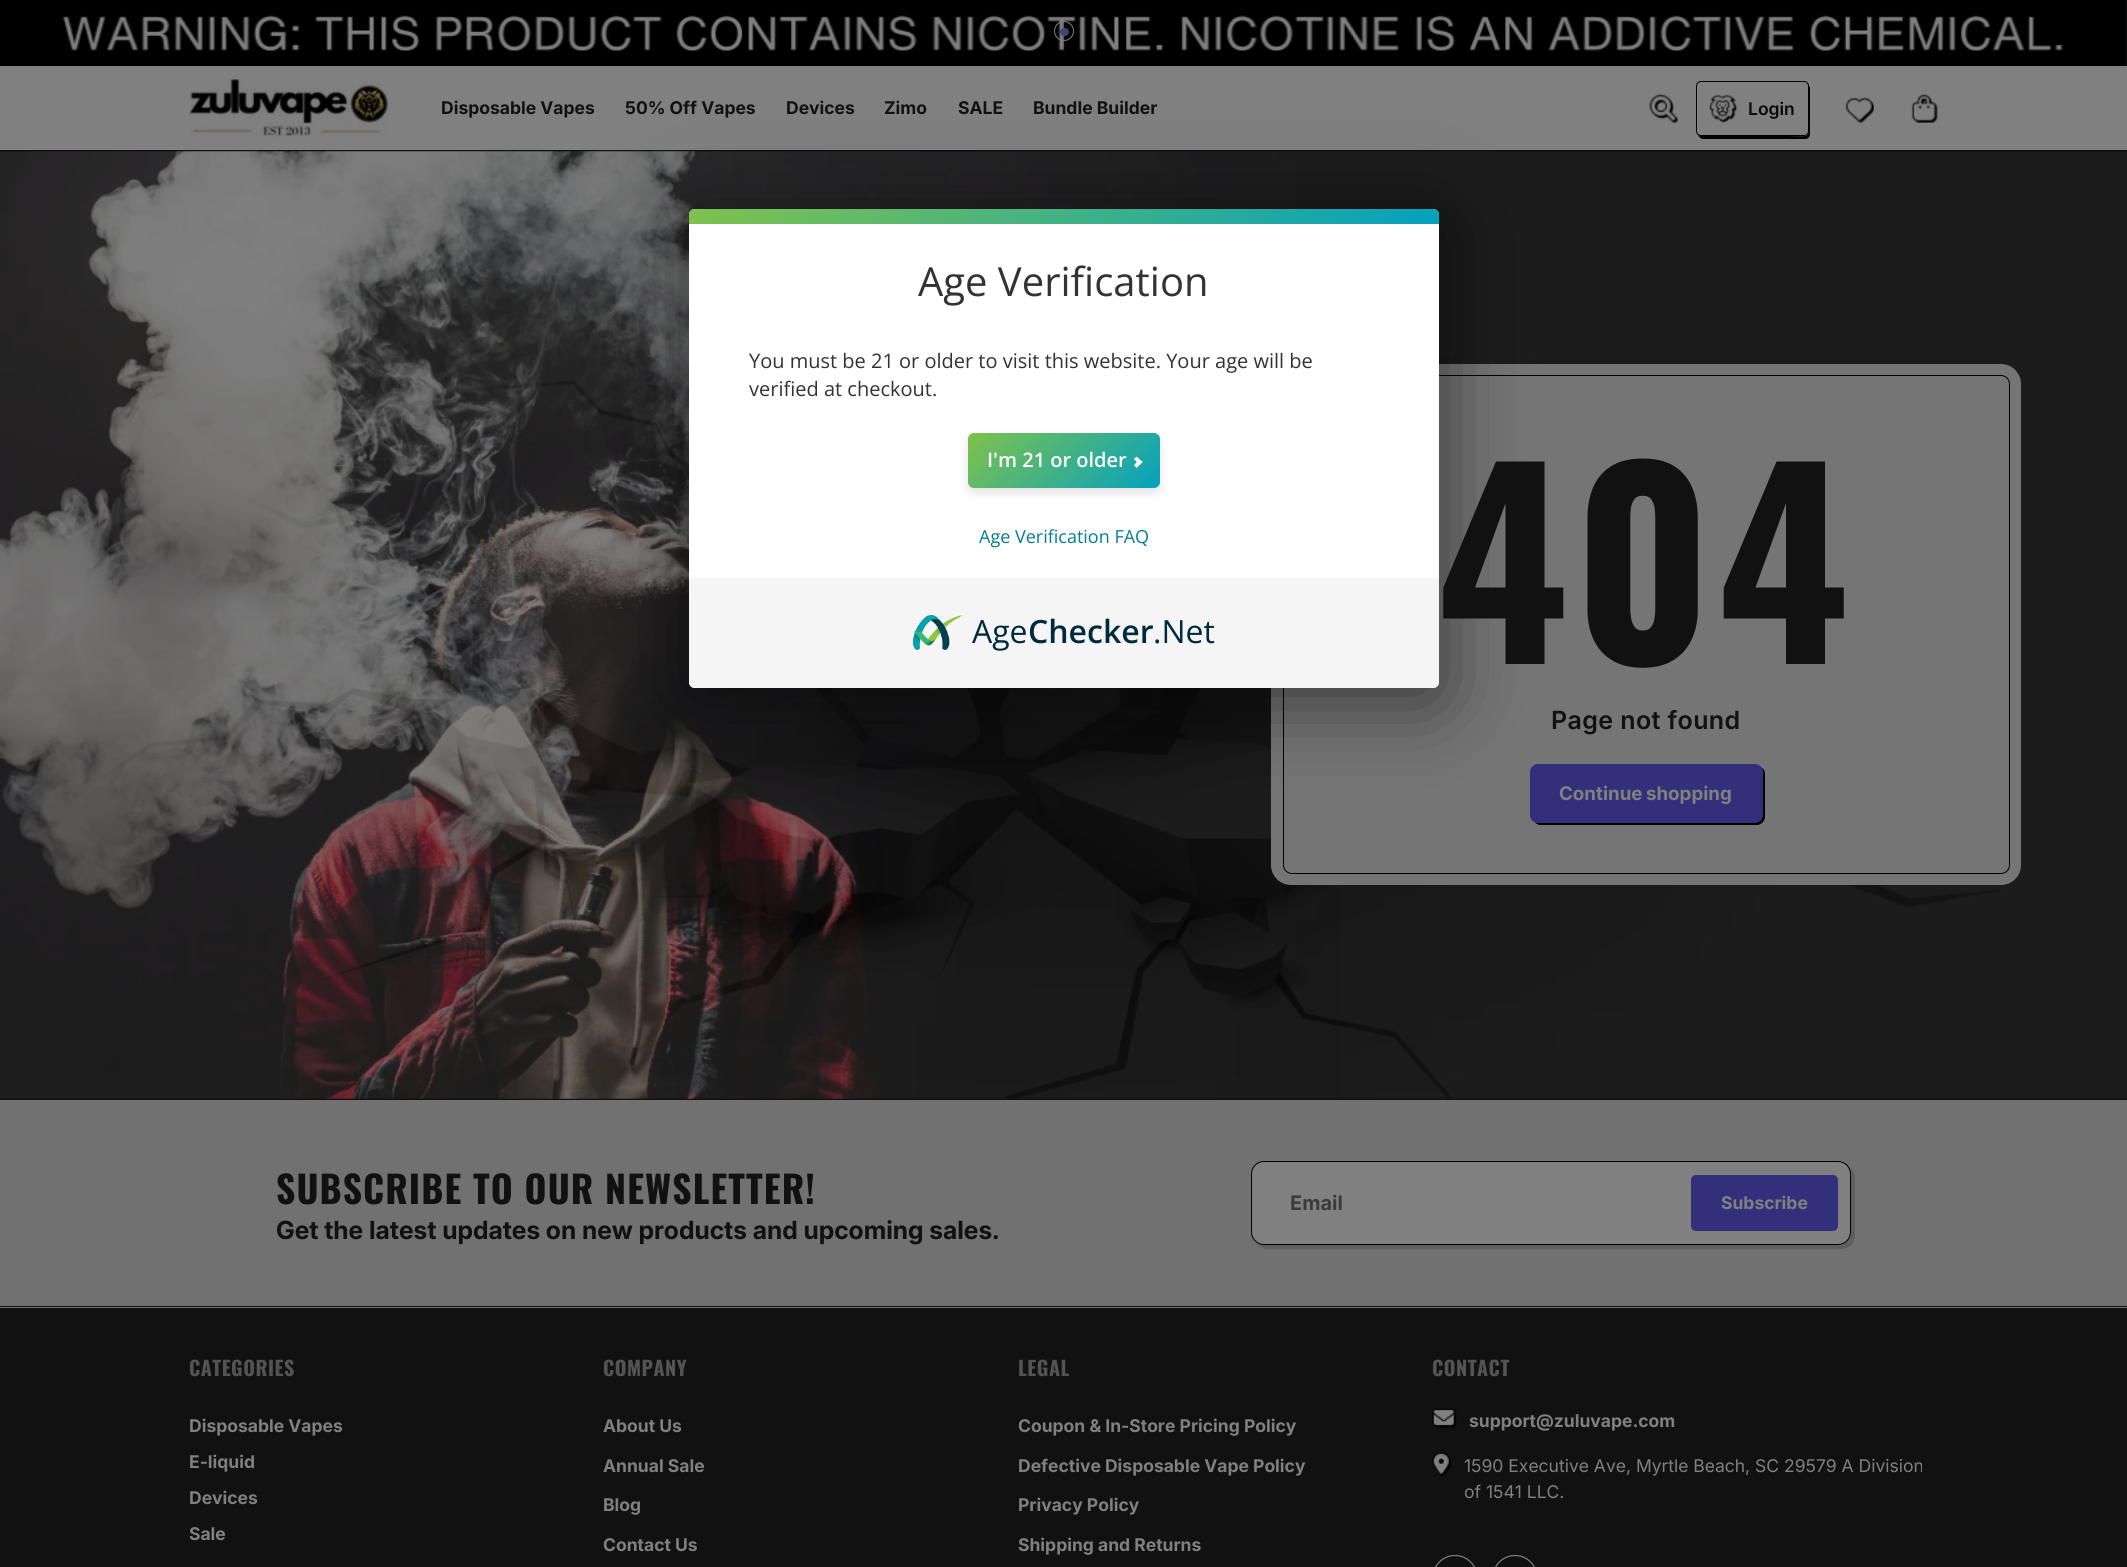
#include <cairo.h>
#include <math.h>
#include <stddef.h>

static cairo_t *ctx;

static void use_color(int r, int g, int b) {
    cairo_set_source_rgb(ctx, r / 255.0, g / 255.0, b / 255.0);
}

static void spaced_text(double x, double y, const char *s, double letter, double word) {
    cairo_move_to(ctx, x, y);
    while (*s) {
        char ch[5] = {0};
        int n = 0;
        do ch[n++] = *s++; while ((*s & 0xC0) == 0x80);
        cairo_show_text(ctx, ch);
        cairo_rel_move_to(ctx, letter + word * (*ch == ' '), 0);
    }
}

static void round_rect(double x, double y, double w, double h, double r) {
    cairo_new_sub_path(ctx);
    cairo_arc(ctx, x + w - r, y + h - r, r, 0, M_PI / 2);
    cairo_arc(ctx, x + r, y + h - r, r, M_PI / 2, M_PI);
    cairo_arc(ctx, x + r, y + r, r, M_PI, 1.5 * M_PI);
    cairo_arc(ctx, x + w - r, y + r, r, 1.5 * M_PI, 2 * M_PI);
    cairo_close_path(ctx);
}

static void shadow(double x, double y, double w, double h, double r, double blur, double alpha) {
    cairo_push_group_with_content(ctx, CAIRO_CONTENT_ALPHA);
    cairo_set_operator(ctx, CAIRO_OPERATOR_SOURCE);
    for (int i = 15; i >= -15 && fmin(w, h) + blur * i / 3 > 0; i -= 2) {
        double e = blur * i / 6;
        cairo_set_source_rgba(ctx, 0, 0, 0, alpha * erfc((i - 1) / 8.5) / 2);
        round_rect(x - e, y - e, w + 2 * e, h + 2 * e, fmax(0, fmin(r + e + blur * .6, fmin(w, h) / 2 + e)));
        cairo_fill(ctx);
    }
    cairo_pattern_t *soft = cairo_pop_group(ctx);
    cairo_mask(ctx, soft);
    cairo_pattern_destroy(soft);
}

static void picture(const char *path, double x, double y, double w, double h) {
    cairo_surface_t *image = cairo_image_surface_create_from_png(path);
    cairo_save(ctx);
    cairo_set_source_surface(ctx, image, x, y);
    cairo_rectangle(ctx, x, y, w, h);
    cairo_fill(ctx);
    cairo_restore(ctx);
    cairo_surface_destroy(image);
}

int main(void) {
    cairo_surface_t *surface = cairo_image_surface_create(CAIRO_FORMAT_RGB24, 2127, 1567);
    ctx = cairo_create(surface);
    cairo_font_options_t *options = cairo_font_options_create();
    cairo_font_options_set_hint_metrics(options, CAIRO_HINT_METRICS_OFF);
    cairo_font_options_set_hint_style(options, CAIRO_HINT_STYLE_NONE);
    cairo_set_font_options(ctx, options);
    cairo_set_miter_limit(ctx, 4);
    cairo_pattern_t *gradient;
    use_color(128, 128, 128);
    cairo_paint(ctx);
    picture("img1.png", 0, 0, 2127, 66);
    cairo_arc(ctx, 1064, 31, 9.5, 0, 2 * M_PI);
    use_color(128, 128, 128);
    cairo_set_line_width(ctx, 1);
    cairo_stroke(ctx);
    use_color(56, 73, 117);
    round_rect(1060, 28, 9, 8, 4);
    cairo_fill(ctx);
    use_color(17, 17, 17);
    cairo_rectangle(ctx, 0, 150, 2127, 1);
    cairo_fill(ctx);
    picture("img2.png", 189, 79, 200, 58);
    cairo_select_font_face(ctx, "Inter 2", CAIRO_FONT_SLANT_NORMAL, CAIRO_FONT_WEIGHT_BOLD);
    cairo_set_font_size(ctx, 17.5);
    cairo_move_to(ctx, 441, 114);
    cairo_show_text(ctx, "Disposable Vapes");
    cairo_move_to(ctx, 625, 114);
    cairo_show_text(ctx, "50% Off Vapes");
    cairo_move_to(ctx, 786, 114);
    cairo_show_text(ctx, "Devices");
    cairo_move_to(ctx, 884, 114);
    cairo_show_text(ctx, "Zimo");
    cairo_move_to(ctx, 958, 114);
    cairo_show_text(ctx, "SALE");
    cairo_move_to(ctx, 1033, 114);
    cairo_show_text(ctx, "Bundle Builder");
    picture("img3.png", 1649, 94, 29, 29);
    use_color(0, 0, 0);
    cairo_new_path(ctx);
    cairo_move_to(ctx, 1698, 135);
    cairo_curve_to(ctx, 1699, 137, 1701, 139, 1703, 139);
    cairo_line_to(ctx, 1805, 139);
    cairo_curve_to(ctx, 1808, 139, 1810, 137, 1810, 134);
    cairo_line_to(ctx, 1810, 89);
    cairo_curve_to(ctx, 1810, 88, 1810, 87, 1809, 86);
    cairo_line_to(ctx, 1809, 116);
    cairo_curve_to(ctx, 1809, 140, 1812, 136, 1787, 136);
    cairo_line_to(ctx, 1701, 136);
    cairo_close_path(ctx);
    cairo_fill(ctx);
    round_rect(1696.5, 81.5, 112, 54, 4.5);
    cairo_stroke(ctx);
    picture("img4.png", 1709, 94, 28, 29);
    cairo_select_font_face(ctx, "Inter SemiBold", CAIRO_FONT_SLANT_NORMAL, CAIRO_FONT_WEIGHT_NORMAL);
    use_color(9, 9, 9);
    cairo_move_to(ctx, 1748, 115);
    cairo_show_text(ctx, "Login");
    picture("img5.png", 1845, 97, 29, 26);
    picture("img6.png", 1911, 94, 27, 29);
    use_color(2, 2, 2);
    cairo_rectangle(ctx, 0, 151, 2127, 948);
    cairo_fill(ctx);
    picture("img8.png", 0, 151, 1340, 948);
    picture("img9.png", 0, 151, 2127, 948);
    use_color(117, 117, 117);
    round_rect(1271, 364, 750, 521, 20);
    cairo_fill(ctx);
    round_rect(1283.5, 375.5, 726, 498, 8.5);
    use_color(0, 0, 0);
    cairo_stroke(ctx);
    cairo_new_path(ctx);
    cairo_move_to(ctx, 1535, 822);
    cairo_curve_to(ctx, 1536, 824, 1538, 825, 1541, 825);
    cairo_line_to(ctx, 1757, 825);
    cairo_curve_to(ctx, 1761, 825, 1765, 821, 1765, 817);
    cairo_line_to(ctx, 1765, 774);
    cairo_curve_to(ctx, 1765, 771, 1764, 769, 1761, 767);
    cairo_curve_to(ctx, 1762, 768, 1762, 770, 1762, 771);
    cairo_line_to(ctx, 1762, 815);
    cairo_curve_to(ctx, 1762, 819, 1759, 822, 1755, 822);
    cairo_line_to(ctx, 1538, 822);
    cairo_close_path(ctx);
    cairo_fill(ctx);
    use_color(50, 48, 123);
    round_rect(1530, 764, 233, 59, 8);
    cairo_fill(ctx);
    use_color(0, 0, 0);
    shadow(685, 218, 758, 486, 10, 40, 0.5);
    use_color(255, 255, 255);
    round_rect(689, 209, 750, 479, 6);
    cairo_fill(ctx);
    gradient = cairo_pattern_create_linear(873, 25, 1255, 408);
    cairo_pattern_add_color_stop_rgba(gradient, 0, 0.498, 0.761, 0.298, 1);
    cairo_pattern_add_color_stop_rgba(gradient, 1, 0.016, 0.631, 0.749, 1);
    cairo_set_source(ctx, gradient);
    cairo_pattern_destroy(gradient);
    cairo_new_path(ctx);
    cairo_move_to(ctx, 695, 209);
    cairo_line_to(ctx, 1433, 209);
    cairo_curve_to(ctx, 1436.5, 209, 1439, 211.5, 1439, 215);
    cairo_line_to(ctx, 1439, 224);
    cairo_line_to(ctx, 689, 224);
    cairo_line_to(ctx, 689, 215);
    cairo_curve_to(ctx, 689, 211.5, 691.5, 209, 695, 209);
    cairo_close_path(ctx);
    cairo_fill(ctx);
    cairo_select_font_face(ctx, "Open Sans", CAIRO_FONT_SLANT_NORMAL, CAIRO_FONT_WEIGHT_NORMAL);
    cairo_set_font_size(ctx, 40);
    use_color(51, 51, 51);
    cairo_move_to(ctx, 918, 296);
    cairo_show_text(ctx, "Age Verification");
    cairo_set_font_size(ctx, 20);
    cairo_move_to(ctx, 749, 368);
    cairo_show_text(ctx, "You must be 21 or older to visit this website. Your age will be");
    cairo_move_to(ctx, 749, 396);
    cairo_show_text(ctx, "verified at checkout.");
    use_color(0, 0, 0);
    shadow(968, 439, 192, 55, 6, 5, 0.1);
    gradient = cairo_pattern_create_linear(1002, 398, 1126, 522);
    cairo_pattern_add_color_stop_rgba(gradient, 0, 0.498, 0.761, 0.298, 1);
    cairo_pattern_add_color_stop_rgba(gradient, 1, 0.016, 0.631, 0.749, 1);
    cairo_set_source(ctx, gradient);
    cairo_pattern_destroy(gradient);
    round_rect(968, 433, 192, 55, 6);
    cairo_fill(ctx);
    cairo_select_font_face(ctx, "Open Sans SemiBold", CAIRO_FONT_SLANT_NORMAL, CAIRO_FONT_WEIGHT_NORMAL);
    use_color(255, 255, 255);
    cairo_move_to(ctx, 987, 467);
    cairo_show_text(ctx, "I'm 21 or older");
    cairo_new_path(ctx);
    cairo_move_to(ctx, 1134, 459);
    cairo_line_to(ctx, 1136.5, 456.5);
    cairo_line_to(ctx, 1142.5, 462);
    cairo_line_to(ctx, 1139.5, 465);
    cairo_close_path(ctx);
    cairo_fill(ctx);
    cairo_new_path(ctx);
    cairo_move_to(ctx, 1134, 465);
    cairo_line_to(ctx, 1139.5, 459.5);
    cairo_line_to(ctx, 1142.5, 462);
    cairo_line_to(ctx, 1136.5, 468);
    cairo_close_path(ctx);
    cairo_fill(ctx);
    cairo_select_font_face(ctx, "Open Sans", CAIRO_FONT_SLANT_NORMAL, CAIRO_FONT_WEIGHT_NORMAL);
    cairo_set_font_size(ctx, 18);
    use_color(3, 125, 150);
    cairo_move_to(ctx, 979, 543);
    cairo_show_text(ctx, "Age Verification FAQ");
    use_color(245, 245, 245);
    cairo_new_path(ctx);
    cairo_move_to(ctx, 689, 578);
    cairo_line_to(ctx, 1439, 578);
    cairo_line_to(ctx, 1439, 682);
    cairo_curve_to(ctx, 1439, 685.5, 1436.5, 688, 1433, 688);
    cairo_line_to(ctx, 695, 688);
    cairo_curve_to(ctx, 691.5, 688, 689, 685.5, 689, 682);
    cairo_close_path(ctx);
    cairo_fill(ctx);
    picture("img7.png", 912, 615, 50, 35);
    cairo_set_font_size(ctx, 32);
    use_color(0, 43, 62);
    cairo_move_to(ctx, 972, 643);
    cairo_show_text(ctx, "Age");
    cairo_select_font_face(ctx, "Open Sans SemiBold", CAIRO_FONT_SLANT_NORMAL, CAIRO_FONT_WEIGHT_NORMAL);
    cairo_move_to(ctx, 1028, 643);
    cairo_show_text(ctx, "Checker");
    cairo_select_font_face(ctx, "Open Sans", CAIRO_FONT_SLANT_NORMAL, CAIRO_FONT_WEIGHT_NORMAL);
    cairo_move_to(ctx, 1153, 643);
    cairo_show_text(ctx, ".Net");
    cairo_select_font_face(ctx, "Oswald", CAIRO_FONT_SLANT_NORMAL, CAIRO_FONT_WEIGHT_BOLD);
    cairo_set_font_size(ctx, 250);
    use_color(17, 17, 17);
    spaced_text(1437, 664, "404", 6, 0);
    cairo_select_font_face(ctx, "Inter SemiBold", CAIRO_FONT_SLANT_NORMAL, CAIRO_FONT_WEIGHT_NORMAL);
    cairo_set_font_size(ctx, 25);
    spaced_text(1551, 729, "Page not found", 0.4, 0);
    cairo_select_font_face(ctx, "Inter 2", CAIRO_FONT_SLANT_NORMAL, CAIRO_FONT_WEIGHT_BOLD);
    cairo_set_font_size(ctx, 18.75);
    use_color(128, 128, 128);
    spaced_text(1559, 800, "Continue shopping", 0, -1);
    use_color(113, 113, 113);
    cairo_rectangle(ctx, 0, 1100, 2127, 208);
    cairo_fill(ctx);
    use_color(17, 17, 17);
    cairo_rectangle(ctx, 0, 1099, 2127, 1);
    cairo_fill(ctx);
    cairo_rectangle(ctx, 0, 1306, 2127, 1);
    cairo_fill(ctx);
    cairo_select_font_face(ctx, "Oswald", CAIRO_FONT_SLANT_NORMAL, CAIRO_FONT_WEIGHT_BOLD);
    cairo_set_font_size(ctx, 37.5);
    spaced_text(276, 1204, "SUBSCRIBE TO OUR NEWSLETTER!", 1.1, 0);
    cairo_select_font_face(ctx, "Inter", CAIRO_FONT_SLANT_NORMAL, CAIRO_FONT_WEIGHT_BOLD);
    cairo_set_font_size(ctx, 25);
    cairo_move_to(ctx, 276, 1239);
    cairo_show_text(ctx, "Get the latest updates on new products and upcoming sales.");
    use_color(95, 95, 95);
    cairo_new_path(ctx);
    cairo_move_to(ctx, 1257, 1243);
    cairo_curve_to(ctx, 1259, 1247, 1263, 1249, 1268, 1249);
    cairo_line_to(ctx, 1842, 1249);
    cairo_curve_to(ctx, 1849, 1249, 1855, 1243, 1855, 1236);
    cairo_line_to(ctx, 1855, 1178);
    cairo_curve_to(ctx, 1855, 1174, 1853, 1170, 1850, 1167);
    cairo_curve_to(ctx, 1851, 1169, 1851, 1171, 1851, 1174);
    cairo_line_to(ctx, 1851, 1232);
    cairo_curve_to(ctx, 1851, 1239, 1846, 1245, 1839, 1245);
    cairo_line_to(ctx, 1264, 1245);
    cairo_curve_to(ctx, 1261, 1245, 1259, 1244, 1257, 1243);
    cairo_close_path(ctx);
    cairo_fill(ctx);
    use_color(128, 128, 128);
    round_rect(1251.5, 1161.5, 599, 83, 12.5);
    cairo_fill_preserve(ctx);
    use_color(0, 0, 0);
    cairo_stroke(ctx);
    cairo_select_font_face(ctx, "Inter 2", CAIRO_FONT_SLANT_NORMAL, CAIRO_FONT_WEIGHT_BOLD);
    cairo_set_font_size(ctx, 20);
    use_color(59, 59, 59);
    cairo_move_to(ctx, 1290, 1210);
    cairo_show_text(ctx, "Email");
    use_color(50, 48, 123);
    round_rect(1691, 1175, 147, 56, 5);
    cairo_fill(ctx);
    cairo_set_font_size(ctx, 17.5);
    use_color(128, 128, 128);
    cairo_move_to(ctx, 1721, 1209);
    cairo_show_text(ctx, "Subscribe");
    use_color(17, 17, 17);
    cairo_rectangle(ctx, 0, 1308, 2127, 259);
    cairo_fill(ctx);
    cairo_select_font_face(ctx, "Oswald", CAIRO_FONT_SLANT_NORMAL, CAIRO_FONT_WEIGHT_BOLD);
    cairo_set_font_size(ctx, 20);
    use_color(83, 83, 83);
    spaced_text(189, 1376, "CATEGORIES", 0.5, 0);
    cairo_select_font_face(ctx, "Inter 2", CAIRO_FONT_SLANT_NORMAL, CAIRO_FONT_WEIGHT_BOLD);
    cairo_set_font_size(ctx, 17.5);
    use_color(128, 128, 128);
    cairo_move_to(ctx, 189, 1432);
    cairo_show_text(ctx, "Disposable Vapes");
    cairo_move_to(ctx, 189, 1468);
    cairo_show_text(ctx, "E-liquid");
    cairo_move_to(ctx, 189, 1504);
    cairo_show_text(ctx, "Devices");
    cairo_move_to(ctx, 189, 1540);
    cairo_show_text(ctx, "Sale");
    cairo_select_font_face(ctx, "Oswald", CAIRO_FONT_SLANT_NORMAL, CAIRO_FONT_WEIGHT_BOLD);
    cairo_set_font_size(ctx, 20);
    use_color(83, 83, 83);
    spaced_text(603, 1376, "COMPANY", 0.5, 0);
    cairo_select_font_face(ctx, "Inter 2", CAIRO_FONT_SLANT_NORMAL, CAIRO_FONT_WEIGHT_BOLD);
    cairo_set_font_size(ctx, 17.5);
    use_color(128, 128, 128);
    cairo_move_to(ctx, 603, 1432);
    cairo_show_text(ctx, "About Us");
    cairo_move_to(ctx, 603, 1472);
    cairo_show_text(ctx, "Annual Sale");
    cairo_move_to(ctx, 603, 1511);
    cairo_show_text(ctx, "Blog");
    cairo_move_to(ctx, 603, 1551);
    cairo_show_text(ctx, "Contact Us");
    cairo_select_font_face(ctx, "Oswald", CAIRO_FONT_SLANT_NORMAL, CAIRO_FONT_WEIGHT_BOLD);
    cairo_set_font_size(ctx, 20);
    use_color(83, 83, 83);
    spaced_text(1018, 1376, "LEGAL", 0.5, 0);
    cairo_select_font_face(ctx, "Inter 2", CAIRO_FONT_SLANT_NORMAL, CAIRO_FONT_WEIGHT_BOLD);
    cairo_set_font_size(ctx, 17.5);
    use_color(128, 128, 128);
    cairo_move_to(ctx, 1018, 1432);
    cairo_show_text(ctx, "Coupon & In-Store Pricing Policy");
    cairo_move_to(ctx, 1018, 1472);
    cairo_show_text(ctx, "Defective Disposable Vape Policy");
    cairo_move_to(ctx, 1018, 1511);
    cairo_show_text(ctx, "Privacy Policy");
    cairo_move_to(ctx, 1018, 1551);
    cairo_show_text(ctx, "Shipping and Returns");
    cairo_select_font_face(ctx, "Oswald", CAIRO_FONT_SLANT_NORMAL, CAIRO_FONT_WEIGHT_BOLD);
    cairo_set_font_size(ctx, 20);
    use_color(83, 83, 83);
    spaced_text(1432, 1376, "CONTACT", 0.5, 0);
    picture("img10.png", 1432, 1408, 25, 20);
    cairo_select_font_face(ctx, "Inter 2", CAIRO_FONT_SLANT_NORMAL, CAIRO_FONT_WEIGHT_BOLD);
    cairo_set_font_size(ctx, 17.5);
    use_color(128, 128, 128);
    cairo_move_to(ctx, 1469, 1427);
    cairo_show_text(ctx, "support@zuluvape.com");
    picture("img11.png", 1432, 1452, 20, 25);
    cairo_select_font_face(ctx, "Inter", CAIRO_FONT_SLANT_NORMAL, CAIRO_FONT_WEIGHT_NORMAL);
    cairo_move_to(ctx, 1464, 1472);
    cairo_show_text(ctx, "1590 Executive Ave, Myrtle Beach, SC 29579 A Division");
    cairo_move_to(ctx, 1464, 1498);
    cairo_show_text(ctx, "of 1541 LLC.");
    picture("img12.png", 1435, 1555, 40, 12);
    picture("img12.png", 1495, 1555, 40, 12);
    cairo_surface_write_to_png(surface, "result.png");
    cairo_font_options_destroy(options);
    cairo_destroy(ctx);
    cairo_surface_destroy(surface);
    return 0;
}
